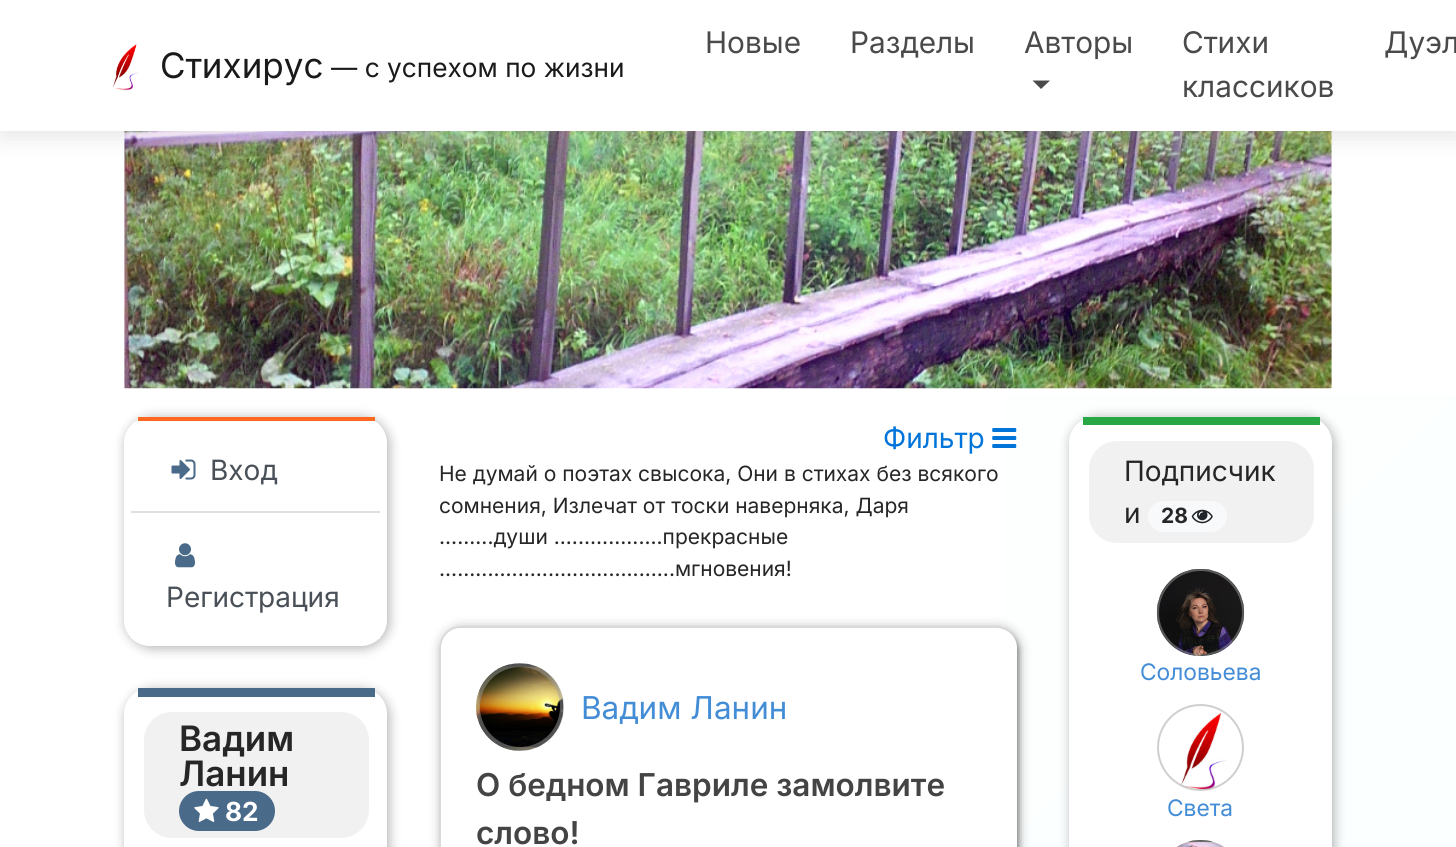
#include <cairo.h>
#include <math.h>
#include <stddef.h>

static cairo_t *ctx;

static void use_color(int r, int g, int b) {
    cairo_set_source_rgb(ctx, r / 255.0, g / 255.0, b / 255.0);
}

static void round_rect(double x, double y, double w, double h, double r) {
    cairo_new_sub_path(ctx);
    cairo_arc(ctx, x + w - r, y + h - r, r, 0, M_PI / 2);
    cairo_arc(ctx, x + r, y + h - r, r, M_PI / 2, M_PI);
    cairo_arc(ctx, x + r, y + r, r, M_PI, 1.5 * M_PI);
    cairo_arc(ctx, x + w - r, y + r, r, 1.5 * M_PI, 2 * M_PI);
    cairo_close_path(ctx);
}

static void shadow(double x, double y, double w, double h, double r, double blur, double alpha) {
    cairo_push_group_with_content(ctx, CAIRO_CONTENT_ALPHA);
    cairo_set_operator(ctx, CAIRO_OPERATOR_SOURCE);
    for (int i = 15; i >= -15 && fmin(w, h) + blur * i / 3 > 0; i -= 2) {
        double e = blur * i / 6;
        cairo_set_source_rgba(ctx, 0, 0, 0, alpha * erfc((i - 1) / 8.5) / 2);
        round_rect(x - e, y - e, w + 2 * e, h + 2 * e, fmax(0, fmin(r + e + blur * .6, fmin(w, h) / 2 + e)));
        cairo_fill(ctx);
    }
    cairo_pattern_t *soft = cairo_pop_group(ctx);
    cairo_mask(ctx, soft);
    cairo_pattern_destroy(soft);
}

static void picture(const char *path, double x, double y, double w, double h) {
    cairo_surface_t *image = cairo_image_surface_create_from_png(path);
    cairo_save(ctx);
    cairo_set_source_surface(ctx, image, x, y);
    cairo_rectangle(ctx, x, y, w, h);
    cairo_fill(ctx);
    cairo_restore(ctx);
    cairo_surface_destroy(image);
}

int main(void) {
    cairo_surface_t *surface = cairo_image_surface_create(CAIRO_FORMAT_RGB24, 1456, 847);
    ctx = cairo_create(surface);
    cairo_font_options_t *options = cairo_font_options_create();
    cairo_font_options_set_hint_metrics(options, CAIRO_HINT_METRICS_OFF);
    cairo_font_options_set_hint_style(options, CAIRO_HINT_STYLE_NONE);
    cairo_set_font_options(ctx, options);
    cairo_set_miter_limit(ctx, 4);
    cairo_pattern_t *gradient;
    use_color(255, 255, 255);
    cairo_paint(ctx);
    gradient = cairo_pattern_create_linear(-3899, 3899, 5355, 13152);
    cairo_pattern_add_color_stop_rgba(gradient, 0, 1, 1, 1, 1);
    cairo_pattern_add_color_stop_rgba(gradient, 1, 0.902, 0.988, 1, 1);
    cairo_set_source(ctx, gradient);
    cairo_pattern_destroy(gradient);
    cairo_rectangle(ctx, 1004, 395, 452, 452);
    cairo_fill(ctx);
    picture("img2.png", 124, 131, 1208, 258);
    use_color(158, 158, 158);
    shadow(2, 4, 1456, 131, 0, 12, 0.3);
    use_color(255, 255, 255);
    cairo_rectangle(ctx, 0, 0, 1456, 131);
    cairo_fill(ctx);
    picture("img1.png", 113, 44, 26, 47);
    cairo_select_font_face(ctx, "Inter", CAIRO_FONT_SLANT_NORMAL, CAIRO_FONT_WEIGHT_NORMAL);
    cairo_set_font_size(ctx, 35);
    use_color(26, 26, 26);
    cairo_move_to(ctx, 160, 78);
    cairo_show_text(ctx, "Стихирус");
    cairo_set_font_size(ctx, 26.25);
    cairo_move_to(ctx, 331, 77);
    cairo_show_text(ctx, "— с успехом по жизни");
    cairo_set_font_size(ctx, 29.75);
    use_color(74, 74, 74);
    cairo_move_to(ctx, 705, 53);
    cairo_show_text(ctx, "Новые");
    cairo_move_to(ctx, 850, 53);
    cairo_show_text(ctx, "Разделы");
    cairo_move_to(ctx, 1024, 53);
    cairo_show_text(ctx, "Авторы");
    cairo_new_path(ctx);
    cairo_move_to(ctx, 1032.5, 80.5);
    cairo_line_to(ctx, 1050, 80.5);
    cairo_line_to(ctx, 1041, 89);
    cairo_close_path(ctx);
    cairo_fill(ctx);
    cairo_move_to(ctx, 1182, 53);
    cairo_show_text(ctx, "Стихи");
    cairo_move_to(ctx, 1182, 97);
    cairo_show_text(ctx, "классиков");
    cairo_move_to(ctx, 1384, 53);
    cairo_show_text(ctx, "Дуэл");
    use_color(0, 0, 0);
    shadow(126, 418, 263, 230, 26, 6, 0.31);
    use_color(255, 255, 255);
    round_rect(124, 417, 263, 229, 26);
    cairo_fill(ctx);
    use_color(255, 104, 32);
    cairo_rectangle(ctx, 138, 417, 237, 4);
    cairo_fill(ctx);
    picture("img3.png", 171, 459, 25, 21);
    cairo_set_font_size(ctx, 28);
    use_color(73, 80, 87);
    cairo_move_to(ctx, 210, 480);
    cairo_show_text(ctx, "Вход");
    use_color(255, 255, 255);
    cairo_rectangle(ctx, 131, 638, 249, 1);
    cairo_fill(ctx);
    use_color(223, 223, 223);
    cairo_rectangle(ctx, 131, 511, 249, 2);
    cairo_fill(ctx);
    picture("img4.png", 175, 543, 20, 25);
    use_color(73, 80, 87);
    cairo_move_to(ctx, 166, 607);
    cairo_show_text(ctx, "Регистрация");
    use_color(0, 0, 0);
    shadow(126, 690, 263, 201, 26, 6, 0.31);
    use_color(255, 255, 255);
    round_rect(124, 688, 263, 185, 26);
    cairo_fill(ctx);
    use_color(74, 106, 138);
    cairo_rectangle(ctx, 138, 688, 237, 9);
    cairo_fill(ctx);
    use_color(241, 241, 241);
    round_rect(144, 712, 225, 126, 28);
    cairo_fill(ctx);
    cairo_select_font_face(ctx, "Inter SemiBold", CAIRO_FONT_SLANT_NORMAL, CAIRO_FONT_WEIGHT_NORMAL);
    cairo_set_font_size(ctx, 35);
    use_color(38, 38, 38);
    cairo_move_to(ctx, 179, 751);
    cairo_show_text(ctx, "Вадим");
    cairo_move_to(ctx, 179, 786);
    cairo_show_text(ctx, "Ланин");
    use_color(74, 106, 138);
    round_rect(179, 791, 96, 40, 20);
    cairo_fill(ctx);
    picture("img5.png", 194, 798, 25, 24);
    cairo_select_font_face(ctx, "Inter", CAIRO_FONT_SLANT_NORMAL, CAIRO_FONT_WEIGHT_BOLD);
    cairo_set_font_size(ctx, 26.25);
    use_color(255, 255, 255);
    cairo_move_to(ctx, 225, 821);
    cairo_show_text(ctx, "82");
    cairo_select_font_face(ctx, "Inter", CAIRO_FONT_SLANT_NORMAL, CAIRO_FONT_WEIGHT_NORMAL);
    cairo_set_font_size(ctx, 28);
    use_color(0, 116, 217);
    cairo_move_to(ctx, 883, 448);
    cairo_show_text(ctx, "Фильтр");
    picture("img6.png", 992, 428, 25, 20);
    cairo_set_font_size(ctx, 21);
    use_color(38, 38, 38);
    cairo_move_to(ctx, 439, 481);
    cairo_show_text(ctx, "Не думай о поэтах свысока, Они в стихах без всякого");
    cairo_move_to(ctx, 439, 513);
    cairo_show_text(ctx, "сомнения, Излечат от тоски наверняка, Даря");
    cairo_move_to(ctx, 439, 544);
    cairo_show_text(ctx, ".........души ..................прекрасные");
    cairo_move_to(ctx, 439, 576);
    cairo_show_text(ctx, ".......................................мгновения!");
    use_color(0, 0, 0);
    shadow(441, 628, 578, 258, 21, 6, 0.31);
    shadow(443, 630, 576, 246, 21, 2.5, 0.31);
    use_color(255, 255, 255);
    round_rect(439, 627, 578, 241, 21);
    cairo_fill(ctx);
    use_color(218, 218, 218);
    cairo_set_fill_rule(ctx, CAIRO_FILL_RULE_EVEN_ODD);
    cairo_new_path(ctx);
    cairo_move_to(ctx, 460, 626);
    cairo_line_to(ctx, 996, 626);
    cairo_curve_to(ctx, 1007, 626, 1017, 636, 1017, 648);
    cairo_line_to(ctx, 1017, 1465);
    cairo_curve_to(ctx, 1017, 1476, 1007, 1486, 996, 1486);
    cairo_line_to(ctx, 460, 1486);
    cairo_curve_to(ctx, 449, 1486, 439, 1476, 439, 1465);
    cairo_line_to(ctx, 439, 648);
    cairo_curve_to(ctx, 439, 636, 449, 626, 460, 626);
    cairo_close_path(ctx);
    cairo_move_to(ctx, 460, 628);
    cairo_line_to(ctx, 996, 628);
    cairo_curve_to(ctx, 1007, 628, 1017, 637, 1017, 648);
    cairo_line_to(ctx, 1017, 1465);
    cairo_curve_to(ctx, 1017, 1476, 1007, 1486, 996, 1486);
    cairo_line_to(ctx, 460, 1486);
    cairo_curve_to(ctx, 450, 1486, 441, 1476, 441, 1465);
    cairo_line_to(ctx, 441, 648);
    cairo_curve_to(ctx, 441, 637, 450, 628, 460, 628);
    cairo_close_path(ctx);
    cairo_fill(ctx);
    picture("img7.png", 476, 663, 88, 88);
    cairo_arc(ctx, 520, 707, 42, 0, 2 * M_PI);
    cairo_set_source_rgba(ctx, 0.627, 0.627, 0.627, 0.5);
    cairo_set_line_width(ctx, 4);
    cairo_stroke(ctx);
    cairo_set_font_size(ctx, 31.5);
    use_color(67, 140, 214);
    cairo_move_to(ctx, 581, 719);
    cairo_show_text(ctx, "Вадим Ланин");
    cairo_select_font_face(ctx, "Inter SemiBold", CAIRO_FONT_SLANT_NORMAL, CAIRO_FONT_WEIGHT_NORMAL);
    use_color(68, 68, 68);
    cairo_move_to(ctx, 476, 796);
    cairo_show_text(ctx, "О бедном Гавриле замолвите");
    cairo_move_to(ctx, 476, 844);
    cairo_show_text(ctx, "слово!");
    use_color(0, 0, 0);
    shadow(1071, 418, 263, 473, 26, 6, 0.31);
    use_color(255, 255, 255);
    round_rect(1069, 417, 263, 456, 26);
    cairo_fill(ctx);
    use_color(40, 167, 69);
    cairo_rectangle(ctx, 1083, 417, 237, 8);
    cairo_fill(ctx);
    use_color(241, 241, 241);
    round_rect(1089, 441, 225, 102, 28);
    cairo_fill(ctx);
    cairo_select_font_face(ctx, "Inter", CAIRO_FONT_SLANT_NORMAL, CAIRO_FONT_WEIGHT_NORMAL);
    cairo_set_font_size(ctx, 28);
    use_color(38, 38, 38);
    cairo_move_to(ctx, 1124, 481);
    cairo_show_text(ctx, "Подписчик");
    cairo_move_to(ctx, 1124, 523);
    cairo_show_text(ctx, "и");
    use_color(248, 249, 250);
    round_rect(1148, 501, 79, 31, 15.5);
    cairo_fill(ctx);
    cairo_select_font_face(ctx, "Inter", CAIRO_FONT_SLANT_NORMAL, CAIRO_FONT_WEIGHT_BOLD);
    cairo_set_font_size(ctx, 21);
    use_color(38, 38, 38);
    cairo_move_to(ctx, 1161, 523);
    cairo_show_text(ctx, "28");
    picture("img8.png", 1191, 509, 22, 15);
    picture("img9.png", 1156, 569, 89, 88);
    cairo_arc(ctx, 1200.5, 612.5, 42.5, 0, 2 * M_PI);
    cairo_set_source_rgba(ctx, 0.627, 0.627, 0.627, 0.5);
    cairo_set_line_width(ctx, 2);
    cairo_stroke(ctx);
    cairo_select_font_face(ctx, "Inter", CAIRO_FONT_SLANT_NORMAL, CAIRO_FONT_WEIGHT_NORMAL);
    cairo_set_font_size(ctx, 22.75);
    use_color(67, 140, 214);
    cairo_move_to(ctx, 1140, 680);
    cairo_show_text(ctx, "Соловьева");
    picture("img10.png", 1180, 711, 47, 79);
    cairo_arc(ctx, 1200.5, 747.5, 42.5, 0, 2 * M_PI);
    cairo_set_source_rgba(ctx, 0.627, 0.627, 0.627, 0.5);
    cairo_stroke(ctx);
    use_color(67, 140, 214);
    cairo_move_to(ctx, 1167, 816);
    cairo_show_text(ctx, "Света");
    picture("img11.png", 1176, 840, 48, 7);
    round_rect(1158, 841, 85, 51, 42.5);
    cairo_set_source_rgba(ctx, 0.627, 0.627, 0.627, 0.5);
    cairo_stroke(ctx);
    cairo_surface_write_to_png(surface, "result.png");
    cairo_font_options_destroy(options);
    cairo_destroy(ctx);
    cairo_surface_destroy(surface);
    return 0;
}
